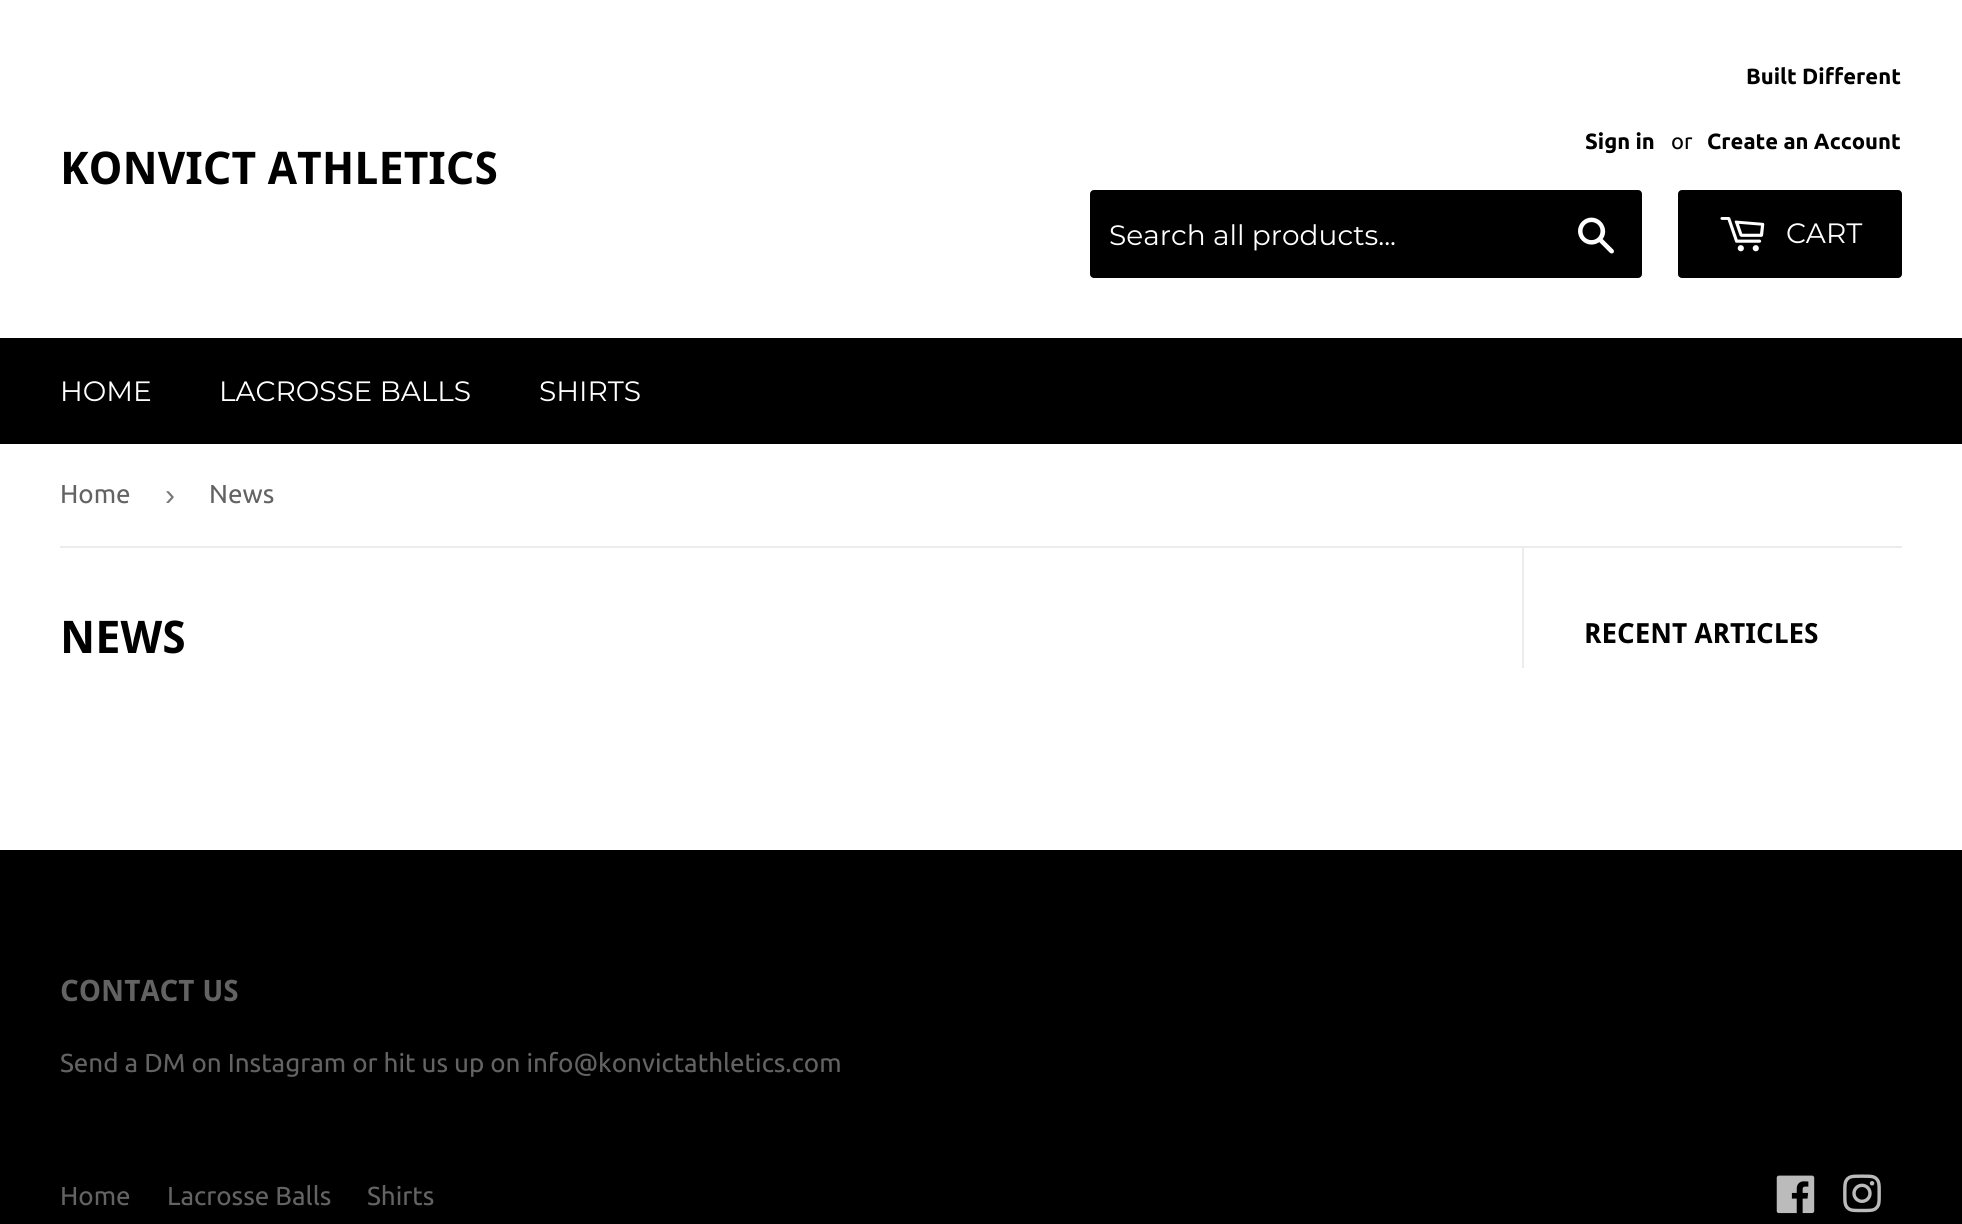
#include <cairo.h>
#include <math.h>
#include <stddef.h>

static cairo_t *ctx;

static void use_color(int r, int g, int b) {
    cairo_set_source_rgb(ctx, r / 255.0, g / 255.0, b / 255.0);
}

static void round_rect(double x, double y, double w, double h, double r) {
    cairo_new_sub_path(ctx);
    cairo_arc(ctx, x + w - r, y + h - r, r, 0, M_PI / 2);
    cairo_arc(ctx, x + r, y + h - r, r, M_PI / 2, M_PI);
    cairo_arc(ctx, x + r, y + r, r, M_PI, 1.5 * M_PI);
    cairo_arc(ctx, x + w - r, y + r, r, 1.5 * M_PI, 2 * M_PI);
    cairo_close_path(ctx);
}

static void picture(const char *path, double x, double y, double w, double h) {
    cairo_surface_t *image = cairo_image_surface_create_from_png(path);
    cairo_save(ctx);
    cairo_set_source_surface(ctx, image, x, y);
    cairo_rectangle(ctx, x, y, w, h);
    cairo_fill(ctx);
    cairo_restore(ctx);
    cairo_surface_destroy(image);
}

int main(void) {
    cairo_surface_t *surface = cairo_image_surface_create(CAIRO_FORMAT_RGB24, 1962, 1224);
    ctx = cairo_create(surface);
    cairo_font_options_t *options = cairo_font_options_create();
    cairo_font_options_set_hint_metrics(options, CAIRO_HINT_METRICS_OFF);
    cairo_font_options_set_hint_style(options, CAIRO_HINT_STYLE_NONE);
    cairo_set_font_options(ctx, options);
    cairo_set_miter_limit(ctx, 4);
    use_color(255, 255, 255);
    cairo_paint(ctx);
    cairo_select_font_face(ctx, "Droid Sans", CAIRO_FONT_SLANT_NORMAL, CAIRO_FONT_WEIGHT_BOLD);
    cairo_set_font_size(ctx, 45);
    use_color(0, 0, 0);
    cairo_move_to(ctx, 60, 184);
    cairo_show_text(ctx, "KONVICT ATHLETICS");
    cairo_select_font_face(ctx, "Ubuntu", CAIRO_FONT_SLANT_NORMAL, CAIRO_FONT_WEIGHT_BOLD);
    cairo_set_font_size(ctx, 22);
    cairo_move_to(ctx, 1746, 84);
    cairo_show_text(ctx, "Built Different");
    cairo_move_to(ctx, 1585, 149);
    cairo_show_text(ctx, "Sign in");
    cairo_select_font_face(ctx, "Ubuntu", CAIRO_FONT_SLANT_NORMAL, CAIRO_FONT_WEIGHT_NORMAL);
    cairo_move_to(ctx, 1671, 149);
    cairo_show_text(ctx, "or");
    cairo_select_font_face(ctx, "Ubuntu", CAIRO_FONT_SLANT_NORMAL, CAIRO_FONT_WEIGHT_BOLD);
    cairo_move_to(ctx, 1707, 149);
    cairo_show_text(ctx, "Create an Account");
    round_rect(1090, 190, 552, 88, 4);
    cairo_fill(ctx);
    cairo_select_font_face(ctx, "Montserrat Thin", CAIRO_FONT_SLANT_NORMAL, CAIRO_FONT_WEIGHT_NORMAL);
    cairo_set_font_size(ctx, 28);
    use_color(255, 255, 255);
    cairo_move_to(ctx, 1109, 245);
    cairo_show_text(ctx, "Search all products...");
    picture("img1.png", 1578, 217, 36, 37);
    use_color(0, 0, 0);
    round_rect(1678, 190, 224, 88, 4);
    cairo_fill(ctx);
    picture("img2.png", 1720, 217, 45, 35);
    use_color(255, 255, 255);
    cairo_move_to(ctx, 1786, 243);
    cairo_show_text(ctx, "CART");
    use_color(0, 0, 0);
    cairo_rectangle(ctx, 0, 338, 1962, 106);
    cairo_fill(ctx);
    use_color(255, 255, 255);
    cairo_move_to(ctx, 60, 401);
    cairo_show_text(ctx, "HOME");
    cairo_move_to(ctx, 219, 401);
    cairo_show_text(ctx, "LACROSSE BALLS");
    cairo_move_to(ctx, 539, 401);
    cairo_show_text(ctx, "SHIRTS");
    use_color(236, 236, 236);
    cairo_rectangle(ctx, 60, 546, 1842, 2);
    cairo_fill(ctx);
    cairo_select_font_face(ctx, "Ubuntu", CAIRO_FONT_SLANT_NORMAL, CAIRO_FONT_WEIGHT_NORMAL);
    cairo_set_font_size(ctx, 26);
    use_color(99, 99, 99);
    cairo_move_to(ctx, 60, 503);
    cairo_show_text(ctx, "Home");
    cairo_select_font_face(ctx, "Liberation Sans", CAIRO_FONT_SLANT_NORMAL, CAIRO_FONT_WEIGHT_NORMAL);
    cairo_set_font_size(ctx, 30);
    use_color(118, 118, 118);
    cairo_move_to(ctx, 165, 505);
    cairo_show_text(ctx, "›");
    cairo_select_font_face(ctx, "Ubuntu", CAIRO_FONT_SLANT_NORMAL, CAIRO_FONT_WEIGHT_NORMAL);
    cairo_set_font_size(ctx, 26);
    use_color(99, 99, 99);
    cairo_move_to(ctx, 209, 503);
    cairo_show_text(ctx, "News");
    cairo_select_font_face(ctx, "Droid Sans", CAIRO_FONT_SLANT_NORMAL, CAIRO_FONT_WEIGHT_BOLD);
    cairo_set_font_size(ctx, 45);
    use_color(0, 0, 0);
    cairo_move_to(ctx, 60, 653);
    cairo_show_text(ctx, "NEWS");
    use_color(236, 236, 236);
    cairo_rectangle(ctx, 1522, 548, 2, 120);
    cairo_fill(ctx);
    cairo_set_font_size(ctx, 27.75);
    use_color(0, 0, 0);
    cairo_move_to(ctx, 1584, 643);
    cairo_show_text(ctx, "RECENT ARTICLES");
    cairo_rectangle(ctx, 0, 850, 1962, 374);
    cairo_fill(ctx);
    cairo_set_font_size(ctx, 29.5);
    use_color(99, 99, 99);
    cairo_move_to(ctx, 60, 1001);
    cairo_show_text(ctx, "CONTACT US");
    cairo_select_font_face(ctx, "Ubuntu", CAIRO_FONT_SLANT_NORMAL, CAIRO_FONT_WEIGHT_NORMAL);
    cairo_set_font_size(ctx, 26);
    cairo_move_to(ctx, 60, 1072);
    cairo_show_text(ctx, "Send a DM on Instagram or hit us up on info@konvictathletics.com");
    cairo_move_to(ctx, 60, 1205);
    cairo_show_text(ctx, "Home");
    cairo_move_to(ctx, 167, 1205);
    cairo_show_text(ctx, "Lacrosse Balls");
    cairo_move_to(ctx, 367, 1205);
    cairo_show_text(ctx, "Shirts");
    picture("img3.png", 1776, 1175, 39, 39);
    picture("img4.png", 1843, 1174, 38, 39);
    cairo_surface_write_to_png(surface, "result.png");
    cairo_font_options_destroy(options);
    cairo_destroy(ctx);
    cairo_surface_destroy(surface);
    return 0;
}
